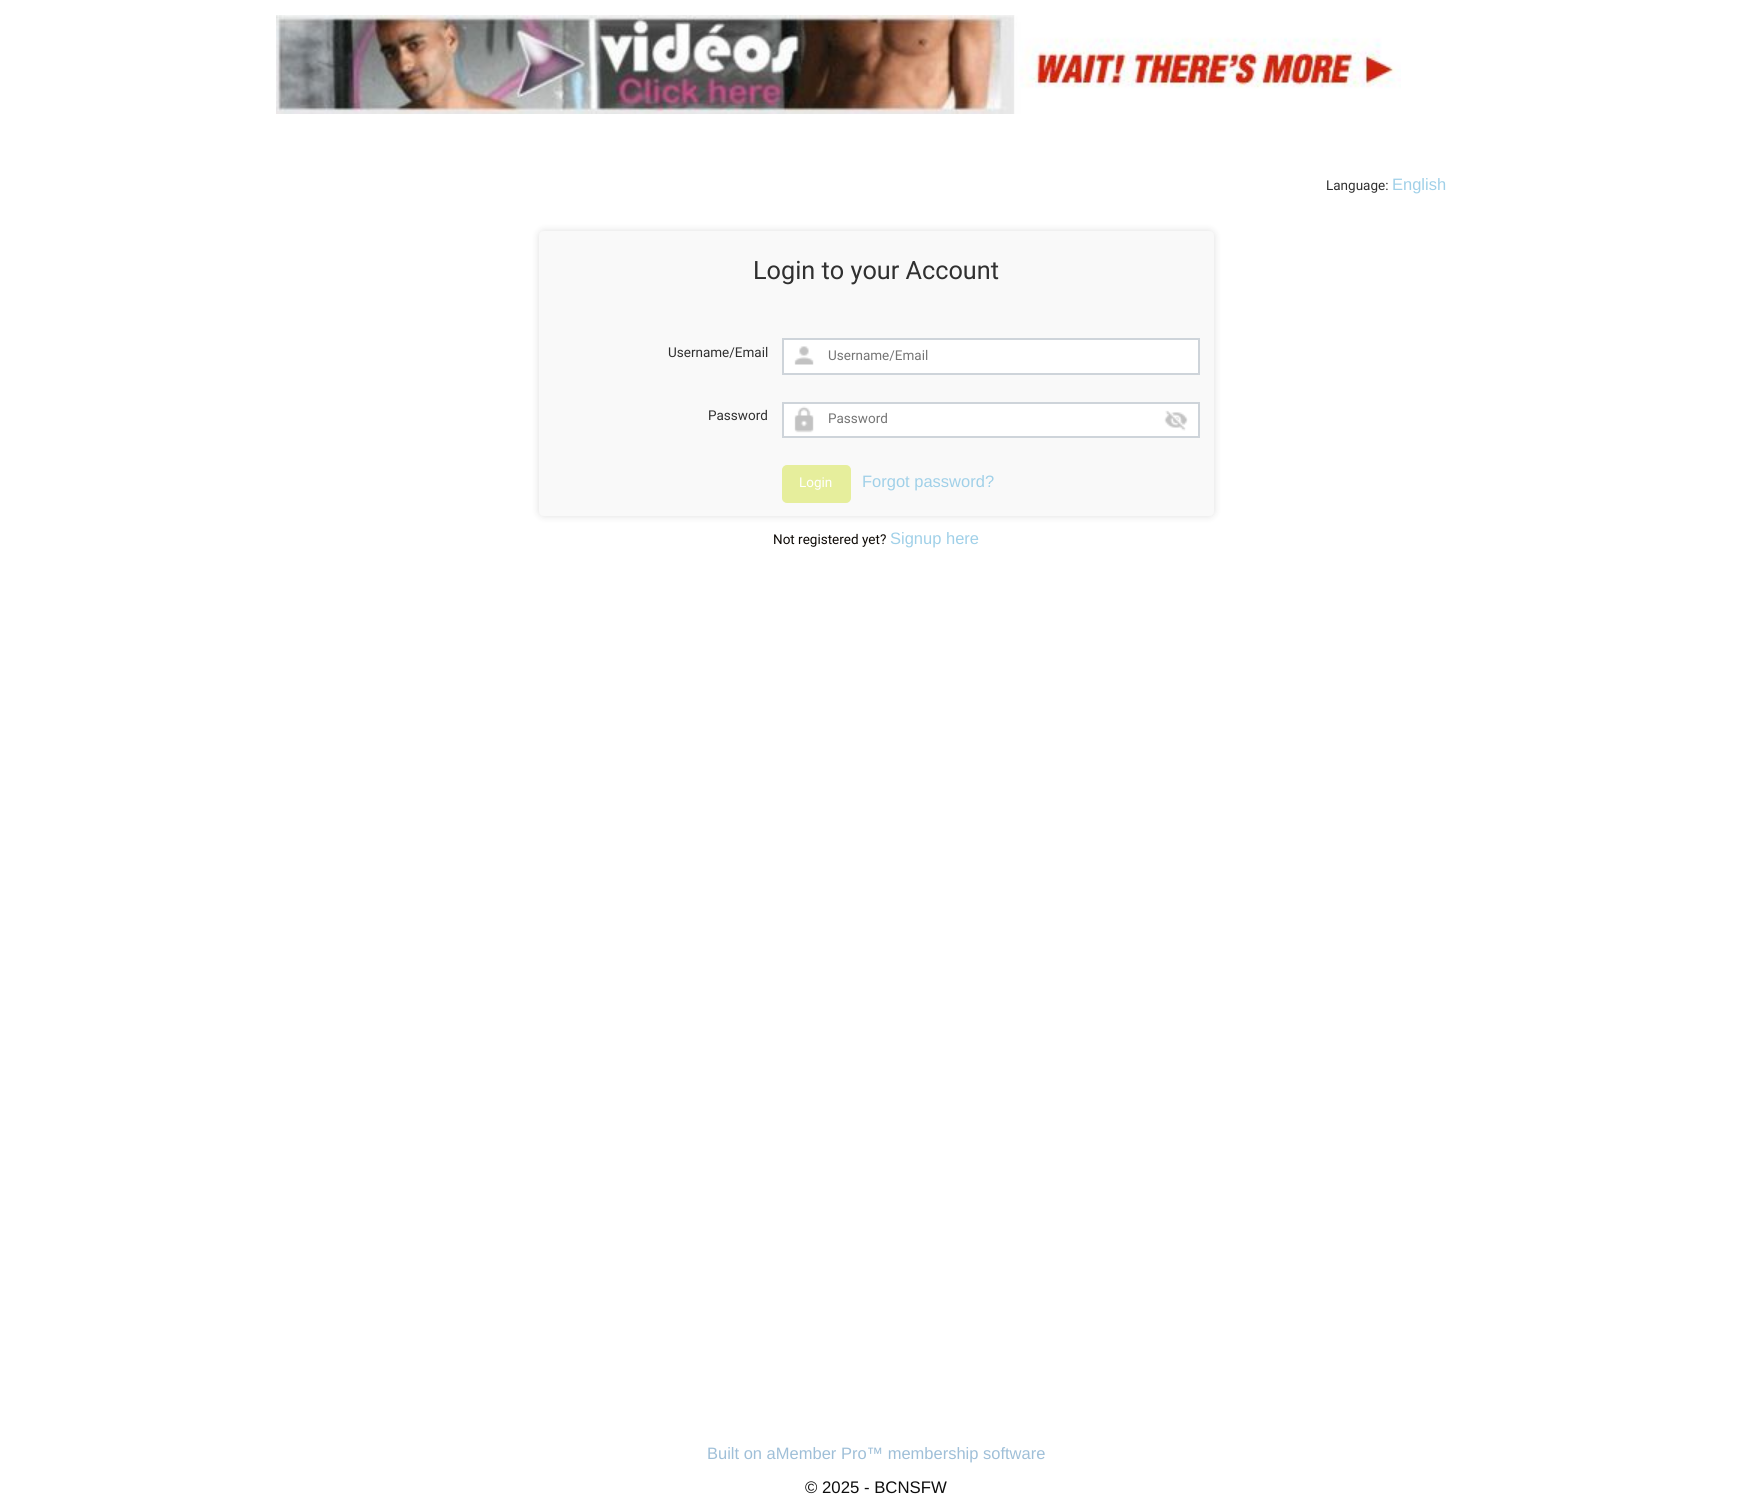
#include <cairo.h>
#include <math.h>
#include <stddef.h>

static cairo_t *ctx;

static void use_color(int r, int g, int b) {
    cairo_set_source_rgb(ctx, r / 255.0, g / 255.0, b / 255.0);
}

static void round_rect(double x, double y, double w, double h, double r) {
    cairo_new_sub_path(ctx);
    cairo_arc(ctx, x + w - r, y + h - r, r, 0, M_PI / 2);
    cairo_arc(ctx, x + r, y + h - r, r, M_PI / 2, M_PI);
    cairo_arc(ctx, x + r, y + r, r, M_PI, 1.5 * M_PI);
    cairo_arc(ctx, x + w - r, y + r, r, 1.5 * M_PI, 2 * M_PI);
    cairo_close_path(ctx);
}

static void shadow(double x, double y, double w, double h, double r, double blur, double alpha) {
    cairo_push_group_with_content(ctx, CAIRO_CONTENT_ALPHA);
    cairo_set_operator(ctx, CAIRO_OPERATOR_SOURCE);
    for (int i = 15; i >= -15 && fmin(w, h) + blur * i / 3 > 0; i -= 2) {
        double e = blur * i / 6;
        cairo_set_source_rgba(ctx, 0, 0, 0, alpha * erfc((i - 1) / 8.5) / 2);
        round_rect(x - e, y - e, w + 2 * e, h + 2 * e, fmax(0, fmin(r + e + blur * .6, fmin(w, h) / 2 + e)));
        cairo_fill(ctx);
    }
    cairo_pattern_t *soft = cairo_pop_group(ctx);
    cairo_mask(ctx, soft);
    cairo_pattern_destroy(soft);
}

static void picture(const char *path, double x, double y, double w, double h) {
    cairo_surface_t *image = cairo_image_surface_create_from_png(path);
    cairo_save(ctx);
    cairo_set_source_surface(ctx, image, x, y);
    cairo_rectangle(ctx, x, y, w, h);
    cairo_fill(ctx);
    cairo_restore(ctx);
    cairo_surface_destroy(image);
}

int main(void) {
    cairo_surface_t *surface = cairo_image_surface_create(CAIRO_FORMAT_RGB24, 1751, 1498);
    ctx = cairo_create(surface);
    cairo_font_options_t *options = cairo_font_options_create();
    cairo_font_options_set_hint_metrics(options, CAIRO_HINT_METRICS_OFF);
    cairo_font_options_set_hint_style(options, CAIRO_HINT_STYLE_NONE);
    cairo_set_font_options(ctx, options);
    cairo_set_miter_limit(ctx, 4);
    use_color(255, 255, 255);
    cairo_paint(ctx);
    picture("img1.png", 276, 15, 1125, 99);
    cairo_select_font_face(ctx, "Roboto", CAIRO_FONT_SLANT_NORMAL, CAIRO_FONT_WEIGHT_NORMAL);
    cairo_set_font_size(ctx, 13.5);
    use_color(48, 48, 48);
    cairo_move_to(ctx, 1326, 190);
    cairo_show_text(ctx, "Language:");
    cairo_select_font_face(ctx, "Liberation Sans", CAIRO_FONT_SLANT_NORMAL, CAIRO_FONT_WEIGHT_NORMAL);
    cairo_set_font_size(ctx, 16.5);
    use_color(160, 208, 232);
    cairo_move_to(ctx, 1392, 190);
    cairo_show_text(ctx, "English");
    use_color(0, 0, 0);
    shadow(539, 231, 675, 285, 5, 4, 0.13);
    use_color(249, 249, 249);
    cairo_new_path(ctx);
    cairo_move_to(ctx, 544, 231);
    cairo_line_to(ctx, 1209, 231);
    cairo_curve_to(ctx, 1212, 231, 1214, 233, 1214, 236);
    cairo_line_to(ctx, 1214, 324);
    cairo_line_to(ctx, 539, 324);
    cairo_line_to(ctx, 539, 236);
    cairo_curve_to(ctx, 539, 233, 541, 231, 544, 231);
    cairo_close_path(ctx);
    cairo_fill(ctx);
    cairo_select_font_face(ctx, "Roboto", CAIRO_FONT_SLANT_NORMAL, CAIRO_FONT_WEIGHT_NORMAL);
    cairo_set_font_size(ctx, 25.25);
    use_color(48, 48, 48);
    cairo_move_to(ctx, 753, 279);
    cairo_show_text(ctx, "Login to your Account");
    use_color(249, 249, 249);
    cairo_rectangle(ctx, 539, 324, 675, 128);
    cairo_fill(ctx);
    cairo_set_font_size(ctx, 13.5);
    use_color(48, 48, 48);
    cairo_move_to(ctx, 668, 357);
    cairo_show_text(ctx, "Username/Email");
    use_color(255, 255, 255);
    cairo_rectangle(ctx, 784, 340, 414, 33);
    cairo_fill(ctx);
    picture("img2.png", 794, 346, 20, 19);
    cairo_rectangle(ctx, 783, 339, 416, 35);
    use_color(206, 212, 218);
    cairo_stroke(ctx);
    use_color(117, 117, 117);
    cairo_move_to(ctx, 828, 360);
    cairo_show_text(ctx, "Username/Email");
    use_color(48, 48, 48);
    cairo_move_to(ctx, 708, 420);
    cairo_show_text(ctx, "Password");
    use_color(255, 255, 255);
    cairo_rectangle(ctx, 784, 404, 414, 32);
    cairo_fill(ctx);
    picture("img3.png", 794, 406, 20, 27);
    cairo_rectangle(ctx, 783, 403, 416, 34);
    use_color(206, 212, 218);
    cairo_stroke(ctx);
    use_color(117, 117, 117);
    cairo_move_to(ctx, 828, 423);
    cairo_show_text(ctx, "Password");
    picture("img4.png", 1164, 410, 24, 21);
    use_color(249, 249, 249);
    cairo_new_path(ctx);
    cairo_move_to(ctx, 539, 452);
    cairo_line_to(ctx, 1214, 452);
    cairo_line_to(ctx, 1214, 511);
    cairo_curve_to(ctx, 1214, 514, 1212, 516, 1209, 516);
    cairo_line_to(ctx, 544, 516);
    cairo_curve_to(ctx, 541, 516, 539, 514, 539, 511);
    cairo_close_path(ctx);
    cairo_fill(ctx);
    use_color(230, 238, 156);
    round_rect(783, 466, 67, 36, 4);
    cairo_fill_preserve(ctx);
    cairo_stroke(ctx);
    use_color(255, 255, 255);
    cairo_move_to(ctx, 799, 487);
    cairo_show_text(ctx, "Login");
    cairo_select_font_face(ctx, "Liberation Sans", CAIRO_FONT_SLANT_NORMAL, CAIRO_FONT_WEIGHT_NORMAL);
    cairo_set_font_size(ctx, 16.5);
    use_color(160, 208, 232);
    cairo_move_to(ctx, 862, 487);
    cairo_show_text(ctx, "Forgot password?");
    cairo_select_font_face(ctx, "Roboto", CAIRO_FONT_SLANT_NORMAL, CAIRO_FONT_WEIGHT_NORMAL);
    cairo_set_font_size(ctx, 13.5);
    use_color(14, 10, 6);
    cairo_move_to(ctx, 773, 544);
    cairo_show_text(ctx, "Not registered yet?");
    cairo_select_font_face(ctx, "Liberation Sans", CAIRO_FONT_SLANT_NORMAL, CAIRO_FONT_WEIGHT_NORMAL);
    cairo_set_font_size(ctx, 16.5);
    use_color(160, 208, 232);
    cairo_move_to(ctx, 890, 544);
    cairo_show_text(ctx, "Signup here");
    use_color(159, 191, 216);
    cairo_move_to(ctx, 707, 1459);
    cairo_show_text(ctx, "Built on aMember Pro™ membership software");
    cairo_set_font_size(ctx, 16.75);
    use_color(13, 13, 13);
    cairo_move_to(ctx, 805, 1493);
    cairo_show_text(ctx, "© 2025 - BCNSFW");
    cairo_surface_write_to_png(surface, "result.png");
    cairo_font_options_destroy(options);
    cairo_destroy(ctx);
    cairo_surface_destroy(surface);
    return 0;
}
